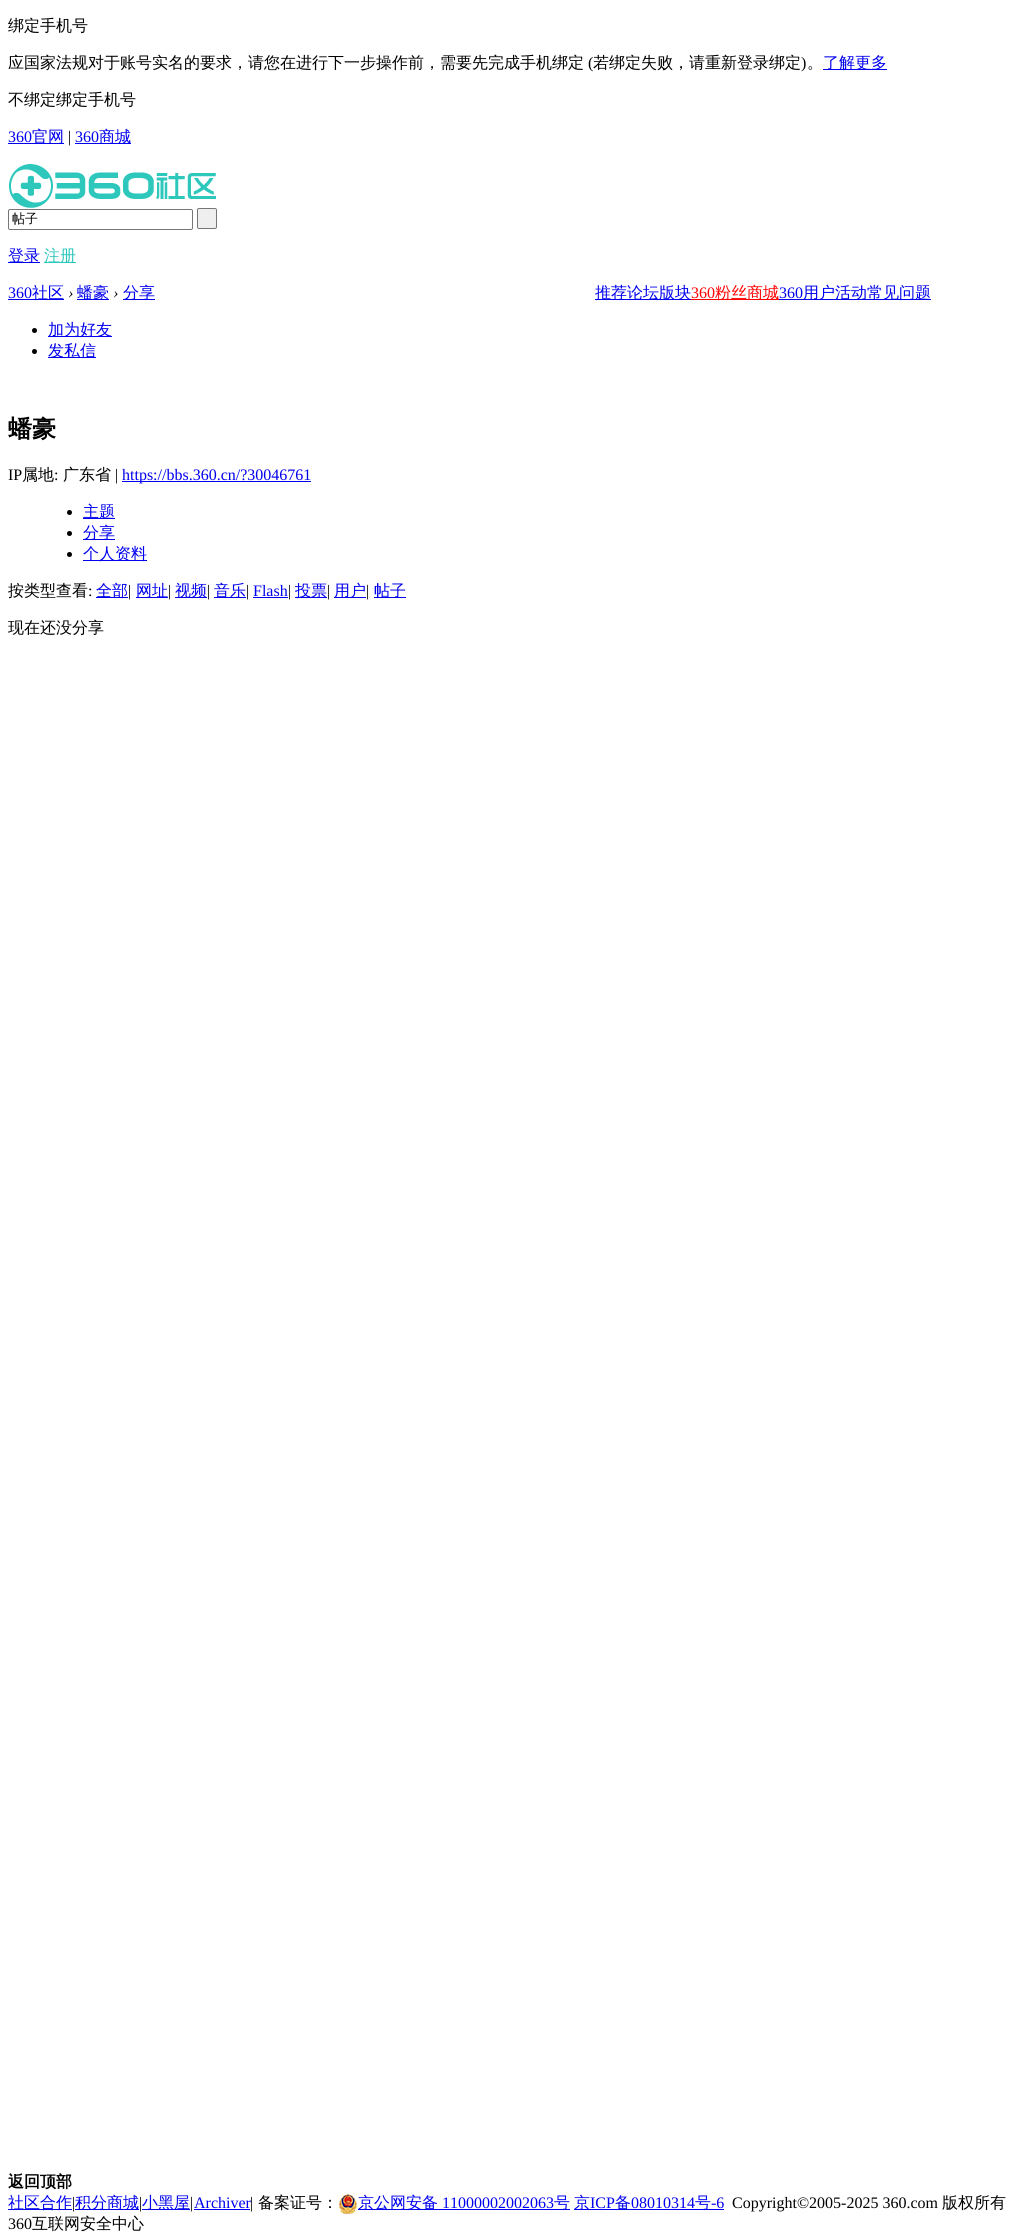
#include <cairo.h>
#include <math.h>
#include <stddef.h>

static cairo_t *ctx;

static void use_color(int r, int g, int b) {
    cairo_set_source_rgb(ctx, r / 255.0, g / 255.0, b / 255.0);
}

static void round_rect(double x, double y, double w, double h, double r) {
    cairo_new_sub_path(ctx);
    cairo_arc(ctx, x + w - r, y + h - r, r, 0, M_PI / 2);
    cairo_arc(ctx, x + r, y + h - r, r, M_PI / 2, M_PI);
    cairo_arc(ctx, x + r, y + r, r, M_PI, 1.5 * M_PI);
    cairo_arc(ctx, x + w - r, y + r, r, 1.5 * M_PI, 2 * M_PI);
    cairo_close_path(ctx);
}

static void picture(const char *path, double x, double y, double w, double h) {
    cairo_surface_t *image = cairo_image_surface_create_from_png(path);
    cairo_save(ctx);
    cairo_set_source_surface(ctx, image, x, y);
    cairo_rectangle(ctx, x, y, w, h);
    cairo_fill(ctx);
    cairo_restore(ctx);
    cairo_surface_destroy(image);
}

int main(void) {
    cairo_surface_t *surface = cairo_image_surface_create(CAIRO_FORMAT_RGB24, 1029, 2234);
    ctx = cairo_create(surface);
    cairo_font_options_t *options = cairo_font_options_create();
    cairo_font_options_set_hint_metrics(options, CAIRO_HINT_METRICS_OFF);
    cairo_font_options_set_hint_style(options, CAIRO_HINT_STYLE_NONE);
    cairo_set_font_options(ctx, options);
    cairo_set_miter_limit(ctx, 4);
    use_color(255, 255, 255);
    cairo_paint(ctx);
    cairo_select_font_face(ctx, "WenQuanYi Zen Hei Medium", CAIRO_FONT_SLANT_NORMAL, CAIRO_FONT_WEIGHT_NORMAL);
    cairo_set_font_size(ctx, 16);
    use_color(0, 0, 0);
    cairo_move_to(ctx, 8, 31);
    cairo_show_text(ctx, "绑定手机号");
    cairo_move_to(ctx, 8, 68);
    cairo_show_text(ctx, "应国家法规对于账号实名的要求，请您在进行下一步操作前，需要先完成手机绑定");
    cairo_select_font_face(ctx, "Liberation Serif", CAIRO_FONT_SLANT_NORMAL, CAIRO_FONT_WEIGHT_NORMAL);
    cairo_move_to(ctx, 588, 68);
    cairo_show_text(ctx, "(");
    cairo_select_font_face(ctx, "WenQuanYi Zen Hei Medium", CAIRO_FONT_SLANT_NORMAL, CAIRO_FONT_WEIGHT_NORMAL);
    cairo_move_to(ctx, 593, 68);
    cairo_show_text(ctx, "若绑定失败，请重新登录绑定");
    cairo_select_font_face(ctx, "Liberation Serif", CAIRO_FONT_SLANT_NORMAL, CAIRO_FONT_WEIGHT_NORMAL);
    cairo_move_to(ctx, 801, 68);
    cairo_show_text(ctx, ")");
    cairo_select_font_face(ctx, "WenQuanYi Zen Hei Medium", CAIRO_FONT_SLANT_NORMAL, CAIRO_FONT_WEIGHT_NORMAL);
    cairo_move_to(ctx, 807, 68);
    cairo_show_text(ctx, "。");
    use_color(0, 0, 238);
    cairo_rectangle(ctx, 823, 69, 64, 1);
    cairo_fill(ctx);
    cairo_move_to(ctx, 823, 68);
    cairo_show_text(ctx, "了解更多");
    use_color(0, 0, 0);
    cairo_move_to(ctx, 8, 105);
    cairo_show_text(ctx, "不绑定绑定手机号");
    cairo_select_font_face(ctx, "Liberation Serif", CAIRO_FONT_SLANT_NORMAL, CAIRO_FONT_WEIGHT_NORMAL);
    use_color(0, 0, 238);
    cairo_move_to(ctx, 8, 142);
    cairo_show_text(ctx, "360");
    cairo_rectangle(ctx, 8, 143, 56, 1);
    cairo_fill(ctx);
    cairo_select_font_face(ctx, "WenQuanYi Zen Hei Medium", CAIRO_FONT_SLANT_NORMAL, CAIRO_FONT_WEIGHT_NORMAL);
    cairo_move_to(ctx, 32, 142);
    cairo_show_text(ctx, "官网");
    cairo_select_font_face(ctx, "Liberation Serif", CAIRO_FONT_SLANT_NORMAL, CAIRO_FONT_WEIGHT_NORMAL);
    use_color(0, 0, 0);
    cairo_move_to(ctx, 68, 142);
    cairo_show_text(ctx, "|");
    use_color(0, 0, 238);
    cairo_move_to(ctx, 75, 142);
    cairo_show_text(ctx, "360");
    cairo_rectangle(ctx, 75, 143, 56, 1);
    cairo_fill(ctx);
    cairo_select_font_face(ctx, "WenQuanYi Zen Hei Medium", CAIRO_FONT_SLANT_NORMAL, CAIRO_FONT_WEIGHT_NORMAL);
    cairo_move_to(ctx, 99, 142);
    cairo_show_text(ctx, "商城");
    picture("img1.png", 9, 164, 207, 44);
    round_rect(8.5, 209.5, 184, 20, 1.5);
    use_color(118, 118, 118);
    cairo_set_line_width(ctx, 1);
    cairo_stroke(ctx);
    cairo_set_font_size(ctx, 13);
    use_color(0, 0, 0);
    cairo_move_to(ctx, 12, 223);
    cairo_show_text(ctx, "帖子");
    use_color(239, 239, 239);
    round_rect(197.5, 208.5, 19, 20, 1.5);
    cairo_fill_preserve(ctx);
    use_color(118, 118, 118);
    cairo_stroke(ctx);
    use_color(0, 0, 238);
    cairo_rectangle(ctx, 8, 262, 32, 1);
    cairo_fill(ctx);
    cairo_set_font_size(ctx, 16);
    cairo_move_to(ctx, 8, 261);
    cairo_show_text(ctx, "登录");
    use_color(46, 199, 187);
    cairo_rectangle(ctx, 44, 262, 32, 1);
    cairo_fill(ctx);
    cairo_move_to(ctx, 44, 261);
    cairo_show_text(ctx, "注册");
    use_color(0, 0, 238);
    cairo_rectangle(ctx, 595, 299, 96, 1);
    cairo_fill(ctx);
    cairo_move_to(ctx, 595, 298);
    cairo_show_text(ctx, "推荐论坛版块");
    cairo_select_font_face(ctx, "Liberation Serif", CAIRO_FONT_SLANT_NORMAL, CAIRO_FONT_WEIGHT_NORMAL);
    use_color(255, 0, 0);
    cairo_move_to(ctx, 691, 298);
    cairo_show_text(ctx, "360");
    cairo_rectangle(ctx, 691, 299, 88, 1);
    cairo_fill(ctx);
    cairo_select_font_face(ctx, "WenQuanYi Zen Hei Medium", CAIRO_FONT_SLANT_NORMAL, CAIRO_FONT_WEIGHT_NORMAL);
    cairo_move_to(ctx, 715, 298);
    cairo_show_text(ctx, "粉丝商城");
    cairo_select_font_face(ctx, "Liberation Serif", CAIRO_FONT_SLANT_NORMAL, CAIRO_FONT_WEIGHT_NORMAL);
    use_color(0, 0, 238);
    cairo_move_to(ctx, 779, 298);
    cairo_show_text(ctx, "360");
    cairo_rectangle(ctx, 779, 299, 152, 1);
    cairo_fill(ctx);
    cairo_select_font_face(ctx, "WenQuanYi Zen Hei Medium", CAIRO_FONT_SLANT_NORMAL, CAIRO_FONT_WEIGHT_NORMAL);
    cairo_move_to(ctx, 803, 298);
    cairo_show_text(ctx, "用户活动常见问题");
    cairo_select_font_face(ctx, "Liberation Serif", CAIRO_FONT_SLANT_NORMAL, CAIRO_FONT_WEIGHT_NORMAL);
    cairo_move_to(ctx, 8, 298);
    cairo_show_text(ctx, "360");
    cairo_rectangle(ctx, 8, 299, 56, 1);
    cairo_fill(ctx);
    cairo_select_font_face(ctx, "WenQuanYi Zen Hei Medium", CAIRO_FONT_SLANT_NORMAL, CAIRO_FONT_WEIGHT_NORMAL);
    cairo_move_to(ctx, 32, 298);
    cairo_show_text(ctx, "社区");
    cairo_select_font_face(ctx, "Liberation Serif", CAIRO_FONT_SLANT_ITALIC, CAIRO_FONT_WEIGHT_NORMAL);
    use_color(0, 0, 0);
    cairo_move_to(ctx, 68, 298);
    cairo_show_text(ctx, "›");
    use_color(0, 0, 238);
    cairo_rectangle(ctx, 77, 299, 32, 1);
    cairo_fill(ctx);
    cairo_select_font_face(ctx, "WenQuanYi Zen Hei Medium", CAIRO_FONT_SLANT_NORMAL, CAIRO_FONT_WEIGHT_NORMAL);
    cairo_move_to(ctx, 77, 298);
    cairo_show_text(ctx, "蟠豪");
    cairo_select_font_face(ctx, "Liberation Serif", CAIRO_FONT_SLANT_ITALIC, CAIRO_FONT_WEIGHT_NORMAL);
    use_color(0, 0, 0);
    cairo_move_to(ctx, 113, 298);
    cairo_show_text(ctx, "›");
    use_color(0, 0, 238);
    cairo_rectangle(ctx, 123, 299, 32, 1);
    cairo_fill(ctx);
    cairo_select_font_face(ctx, "WenQuanYi Zen Hei Medium", CAIRO_FONT_SLANT_NORMAL, CAIRO_FONT_WEIGHT_NORMAL);
    cairo_move_to(ctx, 123, 298);
    cairo_show_text(ctx, "分享");
    use_color(0, 0, 0);
    cairo_new_path(ctx);
    cairo_arc(ctx, 34.5, 330.5, 2.5, 0, 2 * M_PI);
    cairo_fill(ctx);
    use_color(0, 0, 238);
    cairo_rectangle(ctx, 48, 336, 64, 1);
    cairo_fill(ctx);
    cairo_move_to(ctx, 48, 335);
    cairo_show_text(ctx, "加为好友");
    use_color(0, 0, 0);
    cairo_new_path(ctx);
    cairo_arc(ctx, 34.5, 351.5, 2.5, 0, 2 * M_PI);
    cairo_fill(ctx);
    use_color(0, 0, 238);
    cairo_rectangle(ctx, 48, 357, 48, 1);
    cairo_fill(ctx);
    cairo_move_to(ctx, 48, 356);
    cairo_show_text(ctx, "发私信");
    cairo_select_font_face(ctx, "WenQuanYi Zen Hei", CAIRO_FONT_SLANT_NORMAL, CAIRO_FONT_WEIGHT_BOLD);
    cairo_set_font_size(ctx, 24);
    use_color(0, 0, 0);
    cairo_move_to(ctx, 8, 437);
    cairo_show_text(ctx, "蟠豪");
    cairo_select_font_face(ctx, "Liberation Serif", CAIRO_FONT_SLANT_NORMAL, CAIRO_FONT_WEIGHT_NORMAL);
    cairo_set_font_size(ctx, 16);
    cairo_move_to(ctx, 8, 480);
    cairo_show_text(ctx, "IP");
    cairo_select_font_face(ctx, "WenQuanYi Zen Hei Medium", CAIRO_FONT_SLANT_NORMAL, CAIRO_FONT_WEIGHT_NORMAL);
    cairo_move_to(ctx, 22, 480);
    cairo_show_text(ctx, "属地");
    cairo_select_font_face(ctx, "Liberation Serif", CAIRO_FONT_SLANT_NORMAL, CAIRO_FONT_WEIGHT_NORMAL);
    cairo_move_to(ctx, 54, 480);
    cairo_show_text(ctx, ":");
    cairo_select_font_face(ctx, "WenQuanYi Zen Hei Medium", CAIRO_FONT_SLANT_NORMAL, CAIRO_FONT_WEIGHT_NORMAL);
    cairo_move_to(ctx, 63, 480);
    cairo_show_text(ctx, "广东省");
    cairo_select_font_face(ctx, "Liberation Serif", CAIRO_FONT_SLANT_NORMAL, CAIRO_FONT_WEIGHT_NORMAL);
    cairo_move_to(ctx, 115, 480);
    cairo_show_text(ctx, "|");
    use_color(0, 0, 238);
    cairo_rectangle(ctx, 122, 481, 189, 1);
    cairo_fill(ctx);
    cairo_move_to(ctx, 122, 480);
    cairo_show_text(ctx, "https://bbs.360.cn/?30046761");
    use_color(0, 0, 0);
    cairo_new_path(ctx);
    cairo_arc(ctx, 69.5, 512.5, 2.5, 0, 2 * M_PI);
    cairo_fill(ctx);
    use_color(0, 0, 238);
    cairo_rectangle(ctx, 83, 518, 32, 1);
    cairo_fill(ctx);
    cairo_select_font_face(ctx, "WenQuanYi Zen Hei Medium", CAIRO_FONT_SLANT_NORMAL, CAIRO_FONT_WEIGHT_NORMAL);
    cairo_move_to(ctx, 83, 517);
    cairo_show_text(ctx, "主题");
    use_color(0, 0, 0);
    cairo_new_path(ctx);
    cairo_arc(ctx, 69.5, 533.5, 2.5, 0, 2 * M_PI);
    cairo_fill(ctx);
    use_color(0, 0, 238);
    cairo_rectangle(ctx, 83, 539, 32, 1);
    cairo_fill(ctx);
    cairo_move_to(ctx, 83, 538);
    cairo_show_text(ctx, "分享");
    use_color(0, 0, 0);
    cairo_new_path(ctx);
    cairo_arc(ctx, 69.5, 554.5, 2.5, 0, 2 * M_PI);
    cairo_fill(ctx);
    use_color(0, 0, 238);
    cairo_rectangle(ctx, 83, 560, 64, 1);
    cairo_fill(ctx);
    cairo_move_to(ctx, 83, 559);
    cairo_show_text(ctx, "个人资料");
    use_color(0, 0, 0);
    cairo_move_to(ctx, 8, 596);
    cairo_show_text(ctx, "按类型查看");
    cairo_select_font_face(ctx, "Liberation Serif", CAIRO_FONT_SLANT_NORMAL, CAIRO_FONT_WEIGHT_NORMAL);
    cairo_move_to(ctx, 88, 596);
    cairo_show_text(ctx, ":");
    use_color(0, 0, 238);
    cairo_rectangle(ctx, 96, 597, 32, 1);
    cairo_fill(ctx);
    cairo_select_font_face(ctx, "WenQuanYi Zen Hei Medium", CAIRO_FONT_SLANT_NORMAL, CAIRO_FONT_WEIGHT_NORMAL);
    cairo_move_to(ctx, 96, 596);
    cairo_show_text(ctx, "全部");
    cairo_select_font_face(ctx, "Liberation Serif", CAIRO_FONT_SLANT_NORMAL, CAIRO_FONT_WEIGHT_NORMAL);
    use_color(0, 0, 0);
    cairo_move_to(ctx, 128, 596);
    cairo_show_text(ctx, "|");
    use_color(0, 0, 238);
    cairo_rectangle(ctx, 136, 597, 32, 1);
    cairo_fill(ctx);
    cairo_select_font_face(ctx, "WenQuanYi Zen Hei Medium", CAIRO_FONT_SLANT_NORMAL, CAIRO_FONT_WEIGHT_NORMAL);
    cairo_move_to(ctx, 136, 596);
    cairo_show_text(ctx, "网址");
    cairo_select_font_face(ctx, "Liberation Serif", CAIRO_FONT_SLANT_NORMAL, CAIRO_FONT_WEIGHT_NORMAL);
    use_color(0, 0, 0);
    cairo_move_to(ctx, 168, 596);
    cairo_show_text(ctx, "|");
    use_color(0, 0, 238);
    cairo_rectangle(ctx, 175, 597, 32, 1);
    cairo_fill(ctx);
    cairo_select_font_face(ctx, "WenQuanYi Zen Hei Medium", CAIRO_FONT_SLANT_NORMAL, CAIRO_FONT_WEIGHT_NORMAL);
    cairo_move_to(ctx, 175, 596);
    cairo_show_text(ctx, "视频");
    cairo_select_font_face(ctx, "Liberation Serif", CAIRO_FONT_SLANT_NORMAL, CAIRO_FONT_WEIGHT_NORMAL);
    use_color(0, 0, 0);
    cairo_move_to(ctx, 207, 596);
    cairo_show_text(ctx, "|");
    use_color(0, 0, 238);
    cairo_rectangle(ctx, 214, 597, 32, 1);
    cairo_fill(ctx);
    cairo_select_font_face(ctx, "WenQuanYi Zen Hei Medium", CAIRO_FONT_SLANT_NORMAL, CAIRO_FONT_WEIGHT_NORMAL);
    cairo_move_to(ctx, 214, 596);
    cairo_show_text(ctx, "音乐");
    cairo_select_font_face(ctx, "Liberation Serif", CAIRO_FONT_SLANT_NORMAL, CAIRO_FONT_WEIGHT_NORMAL);
    use_color(0, 0, 0);
    cairo_move_to(ctx, 246, 596);
    cairo_show_text(ctx, "|");
    use_color(0, 0, 238);
    cairo_move_to(ctx, 253, 596);
    cairo_show_text(ctx, "Flash");
    cairo_rectangle(ctx, 253, 597, 35, 1);
    cairo_fill(ctx);
    use_color(0, 0, 0);
    cairo_move_to(ctx, 288, 596);
    cairo_show_text(ctx, "|");
    use_color(0, 0, 238);
    cairo_rectangle(ctx, 295, 597, 32, 1);
    cairo_fill(ctx);
    cairo_select_font_face(ctx, "WenQuanYi Zen Hei Medium", CAIRO_FONT_SLANT_NORMAL, CAIRO_FONT_WEIGHT_NORMAL);
    cairo_move_to(ctx, 295, 596);
    cairo_show_text(ctx, "投票");
    cairo_select_font_face(ctx, "Liberation Serif", CAIRO_FONT_SLANT_NORMAL, CAIRO_FONT_WEIGHT_NORMAL);
    use_color(0, 0, 0);
    cairo_move_to(ctx, 327, 596);
    cairo_show_text(ctx, "|");
    use_color(0, 0, 238);
    cairo_rectangle(ctx, 334, 597, 32, 1);
    cairo_fill(ctx);
    cairo_select_font_face(ctx, "WenQuanYi Zen Hei Medium", CAIRO_FONT_SLANT_NORMAL, CAIRO_FONT_WEIGHT_NORMAL);
    cairo_move_to(ctx, 334, 596);
    cairo_show_text(ctx, "用户");
    cairo_select_font_face(ctx, "Liberation Serif", CAIRO_FONT_SLANT_NORMAL, CAIRO_FONT_WEIGHT_NORMAL);
    use_color(0, 0, 0);
    cairo_move_to(ctx, 366, 596);
    cairo_show_text(ctx, "|");
    use_color(0, 0, 238);
    cairo_rectangle(ctx, 374, 597, 32, 1);
    cairo_fill(ctx);
    cairo_select_font_face(ctx, "WenQuanYi Zen Hei Medium", CAIRO_FONT_SLANT_NORMAL, CAIRO_FONT_WEIGHT_NORMAL);
    cairo_move_to(ctx, 374, 596);
    cairo_show_text(ctx, "帖子");
    use_color(0, 0, 0);
    cairo_move_to(ctx, 8, 633);
    cairo_show_text(ctx, "现在还没分享");
    cairo_select_font_face(ctx, "WenQuanYi Zen Hei", CAIRO_FONT_SLANT_NORMAL, CAIRO_FONT_WEIGHT_BOLD);
    cairo_move_to(ctx, 8, 2187);
    cairo_show_text(ctx, "返回顶部");
    use_color(0, 0, 238);
    cairo_rectangle(ctx, 8, 2209, 64, 1);
    cairo_fill(ctx);
    cairo_select_font_face(ctx, "WenQuanYi Zen Hei Medium", CAIRO_FONT_SLANT_NORMAL, CAIRO_FONT_WEIGHT_NORMAL);
    cairo_move_to(ctx, 8, 2208);
    cairo_show_text(ctx, "社区合作");
    cairo_select_font_face(ctx, "Liberation Serif", CAIRO_FONT_SLANT_NORMAL, CAIRO_FONT_WEIGHT_NORMAL);
    use_color(0, 0, 0);
    cairo_move_to(ctx, 72, 2208);
    cairo_show_text(ctx, "|");
    use_color(0, 0, 238);
    cairo_rectangle(ctx, 75, 2209, 64, 1);
    cairo_fill(ctx);
    cairo_select_font_face(ctx, "WenQuanYi Zen Hei Medium", CAIRO_FONT_SLANT_NORMAL, CAIRO_FONT_WEIGHT_NORMAL);
    cairo_move_to(ctx, 75, 2208);
    cairo_show_text(ctx, "积分商城");
    cairo_select_font_face(ctx, "Liberation Serif", CAIRO_FONT_SLANT_NORMAL, CAIRO_FONT_WEIGHT_NORMAL);
    use_color(0, 0, 0);
    cairo_move_to(ctx, 139, 2208);
    cairo_show_text(ctx, "|");
    use_color(0, 0, 238);
    cairo_rectangle(ctx, 142, 2209, 48, 1);
    cairo_fill(ctx);
    cairo_select_font_face(ctx, "WenQuanYi Zen Hei Medium", CAIRO_FONT_SLANT_NORMAL, CAIRO_FONT_WEIGHT_NORMAL);
    cairo_move_to(ctx, 142, 2208);
    cairo_show_text(ctx, "小黑屋");
    cairo_select_font_face(ctx, "Liberation Serif", CAIRO_FONT_SLANT_NORMAL, CAIRO_FONT_WEIGHT_NORMAL);
    use_color(0, 0, 0);
    cairo_move_to(ctx, 190, 2208);
    cairo_show_text(ctx, "|");
    use_color(0, 0, 238);
    cairo_move_to(ctx, 194, 2208);
    cairo_show_text(ctx, "Archiver");
    cairo_rectangle(ctx, 194, 2209, 56, 1);
    cairo_fill(ctx);
    use_color(0, 0, 0);
    cairo_move_to(ctx, 250, 2208);
    cairo_show_text(ctx, "|");
    cairo_select_font_face(ctx, "WenQuanYi Zen Hei Medium", CAIRO_FONT_SLANT_NORMAL, CAIRO_FONT_WEIGHT_NORMAL);
    cairo_move_to(ctx, 258, 2208);
    cairo_show_text(ctx, "备案证号：");
    picture("img2.png", 339, 2194, 18, 20);
    use_color(0, 0, 238);
    cairo_rectangle(ctx, 358, 2209, 212, 1);
    cairo_fill(ctx);
    cairo_move_to(ctx, 358, 2208);
    cairo_show_text(ctx, "京公网安备");
    cairo_select_font_face(ctx, "Liberation Serif", CAIRO_FONT_SLANT_NORMAL, CAIRO_FONT_WEIGHT_NORMAL);
    cairo_move_to(ctx, 442, 2208);
    cairo_show_text(ctx, "11000002002063");
    cairo_select_font_face(ctx, "WenQuanYi Zen Hei Medium", CAIRO_FONT_SLANT_NORMAL, CAIRO_FONT_WEIGHT_NORMAL);
    cairo_move_to(ctx, 554, 2208);
    cairo_show_text(ctx, "号");
    cairo_rectangle(ctx, 574, 2209, 150, 1);
    cairo_fill(ctx);
    cairo_move_to(ctx, 574, 2208);
    cairo_show_text(ctx, "京");
    cairo_select_font_face(ctx, "Liberation Serif", CAIRO_FONT_SLANT_NORMAL, CAIRO_FONT_WEIGHT_NORMAL);
    cairo_move_to(ctx, 590, 2208);
    cairo_show_text(ctx, "ICP");
    cairo_select_font_face(ctx, "WenQuanYi Zen Hei Medium", CAIRO_FONT_SLANT_NORMAL, CAIRO_FONT_WEIGHT_NORMAL);
    cairo_move_to(ctx, 615, 2208);
    cairo_show_text(ctx, "备");
    cairo_select_font_face(ctx, "Liberation Serif", CAIRO_FONT_SLANT_NORMAL, CAIRO_FONT_WEIGHT_NORMAL);
    cairo_move_to(ctx, 631, 2208);
    cairo_show_text(ctx, "08010314");
    cairo_select_font_face(ctx, "WenQuanYi Zen Hei Medium", CAIRO_FONT_SLANT_NORMAL, CAIRO_FONT_WEIGHT_NORMAL);
    cairo_move_to(ctx, 695, 2208);
    cairo_show_text(ctx, "号");
    cairo_select_font_face(ctx, "Liberation Serif", CAIRO_FONT_SLANT_NORMAL, CAIRO_FONT_WEIGHT_NORMAL);
    cairo_move_to(ctx, 711, 2208);
    cairo_show_text(ctx, "-6");
    use_color(0, 0, 0);
    cairo_move_to(ctx, 732, 2208);
    cairo_show_text(ctx, "Copyright©2005-2025 360.com");
    cairo_select_font_face(ctx, "WenQuanYi Zen Hei Medium", CAIRO_FONT_SLANT_NORMAL, CAIRO_FONT_WEIGHT_NORMAL);
    cairo_move_to(ctx, 942, 2208);
    cairo_show_text(ctx, "版权所有");
    cairo_select_font_face(ctx, "Liberation Serif", CAIRO_FONT_SLANT_NORMAL, CAIRO_FONT_WEIGHT_NORMAL);
    cairo_move_to(ctx, 8, 2229);
    cairo_show_text(ctx, "360");
    cairo_select_font_face(ctx, "WenQuanYi Zen Hei Medium", CAIRO_FONT_SLANT_NORMAL, CAIRO_FONT_WEIGHT_NORMAL);
    cairo_move_to(ctx, 32, 2229);
    cairo_show_text(ctx, "互联网安全中心");
    cairo_surface_write_to_png(surface, "result.png");
    cairo_font_options_destroy(options);
    cairo_destroy(ctx);
    cairo_surface_destroy(surface);
    return 0;
}
